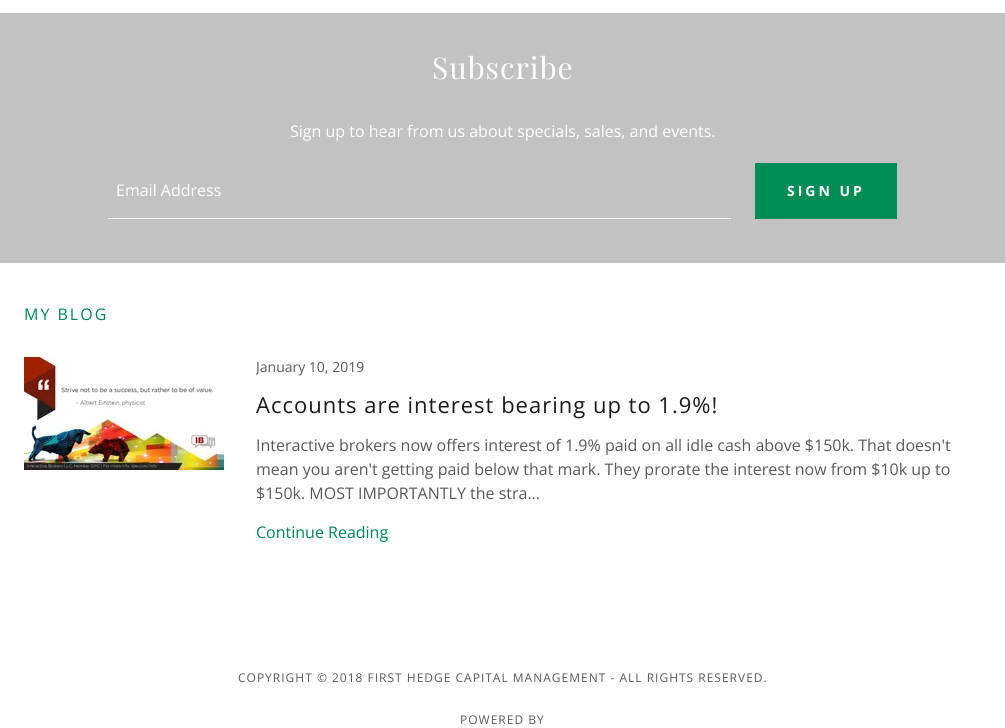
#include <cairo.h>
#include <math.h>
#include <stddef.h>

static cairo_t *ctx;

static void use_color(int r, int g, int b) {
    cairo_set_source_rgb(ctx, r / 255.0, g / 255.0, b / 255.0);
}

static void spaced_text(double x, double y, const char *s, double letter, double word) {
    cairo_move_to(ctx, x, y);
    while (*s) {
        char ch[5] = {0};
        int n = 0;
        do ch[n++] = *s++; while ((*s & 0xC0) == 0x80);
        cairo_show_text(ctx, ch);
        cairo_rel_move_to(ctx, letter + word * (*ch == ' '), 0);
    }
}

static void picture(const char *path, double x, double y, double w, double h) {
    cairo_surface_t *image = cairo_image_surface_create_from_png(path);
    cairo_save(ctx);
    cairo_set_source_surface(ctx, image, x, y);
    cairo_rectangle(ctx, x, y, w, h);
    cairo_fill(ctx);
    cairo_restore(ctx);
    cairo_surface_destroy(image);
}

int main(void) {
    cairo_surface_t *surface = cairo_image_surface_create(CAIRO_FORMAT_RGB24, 1005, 728);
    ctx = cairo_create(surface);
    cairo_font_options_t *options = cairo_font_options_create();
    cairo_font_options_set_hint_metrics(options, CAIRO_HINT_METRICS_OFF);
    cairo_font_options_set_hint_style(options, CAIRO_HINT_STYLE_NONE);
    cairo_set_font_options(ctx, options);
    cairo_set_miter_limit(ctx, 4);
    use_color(255, 255, 255);
    cairo_paint(ctx);
    use_color(194, 194, 194);
    cairo_rectangle(ctx, 0, 13, 1005, 250);
    cairo_fill(ctx);
    cairo_select_font_face(ctx, "Playfair Display", CAIRO_FONT_SLANT_NORMAL, CAIRO_FONT_WEIGHT_NORMAL);
    cairo_set_font_size(ctx, 30);
    use_color(255, 255, 255);
    spaced_text(432, 79, "Subscribe", 1, 0);
    cairo_select_font_face(ctx, "Open Sans", CAIRO_FONT_SLANT_NORMAL, CAIRO_FONT_WEIGHT_NORMAL);
    cairo_set_font_size(ctx, 16);
    cairo_move_to(ctx, 290, 137);
    cairo_show_text(ctx, "Sign up to hear from us about specials, sales, and events.");
    cairo_move_to(ctx, 116, 196);
    cairo_show_text(ctx, "Email Address");
    cairo_rectangle(ctx, 108, 218, 623, 1);
    cairo_fill(ctx);
    use_color(0, 141, 85);
    cairo_rectangle(ctx, 755, 163, 142, 56);
    cairo_fill(ctx);
    cairo_select_font_face(ctx, "Open Sans", CAIRO_FONT_SLANT_NORMAL, CAIRO_FONT_WEIGHT_BOLD);
    cairo_set_font_size(ctx, 14);
    use_color(255, 255, 255);
    spaced_text(787, 196, "SIGN UP", 3, 0);
    cairo_select_font_face(ctx, "Open Sans", CAIRO_FONT_SLANT_NORMAL, CAIRO_FONT_WEIGHT_NORMAL);
    cairo_set_font_size(ctx, 16);
    use_color(0, 135, 81);
    spaced_text(24, 320, "MY BLOG", 2, 0);
    picture("img1.png", 24, 357, 200, 113);
    cairo_save(ctx);
    cairo_rectangle(ctx, 256, 357, 725, 190);
    cairo_clip(ctx);
    cairo_set_font_size(ctx, 14);
    use_color(89, 89, 89);
    cairo_move_to(ctx, 256, 372);
    cairo_show_text(ctx, "January 10, 2019");
    cairo_restore(ctx);
    cairo_set_font_size(ctx, 22);
    use_color(27, 27, 27);
    spaced_text(256, 413, "Accounts are interest bearing up to 1.9%!", 1, 0);
    cairo_set_font_size(ctx, 16);
    use_color(89, 89, 89);
    cairo_move_to(ctx, 256, 451);
    cairo_show_text(ctx, "Interactive brokers now offers interest of 1.9% paid on all idle cash above $150k. That doesn't");
    cairo_move_to(ctx, 256, 475);
    cairo_show_text(ctx, "mean you aren't getting paid below that mark. They prorate the interest now from $10k up to");
    cairo_move_to(ctx, 256, 499);
    cairo_show_text(ctx, "$150k. MOST IMPORTANTLY the stra...");
    use_color(0, 135, 81);
    cairo_move_to(ctx, 256, 538);
    cairo_show_text(ctx, "Continue Reading");
    cairo_set_font_size(ctx, 12);
    use_color(89, 89, 89);
    spaced_text(238, 682, "COPYRIGHT © 2018 FIRST HEDGE CAPITAL MANAGEMENT - ALL RIGHTS RESERVED.", 1, 0);
    spaced_text(460, 724, "POWERED BY", 1, 0);
    cairo_surface_write_to_png(surface, "result.png");
    cairo_font_options_destroy(options);
    cairo_destroy(ctx);
    cairo_surface_destroy(surface);
    return 0;
}
